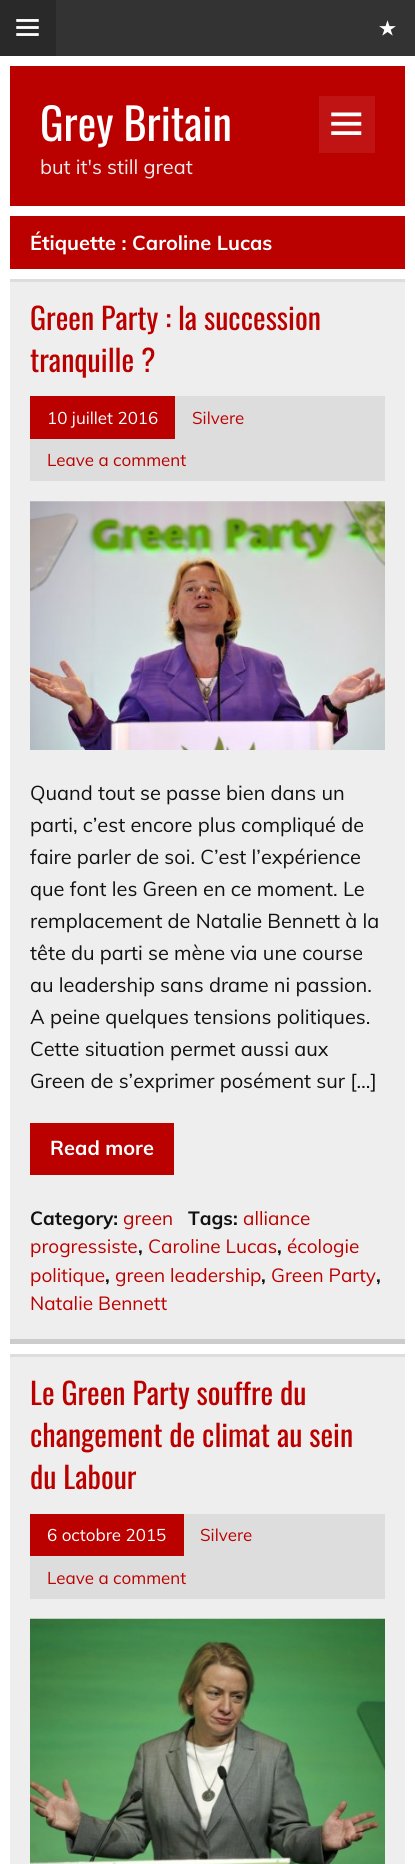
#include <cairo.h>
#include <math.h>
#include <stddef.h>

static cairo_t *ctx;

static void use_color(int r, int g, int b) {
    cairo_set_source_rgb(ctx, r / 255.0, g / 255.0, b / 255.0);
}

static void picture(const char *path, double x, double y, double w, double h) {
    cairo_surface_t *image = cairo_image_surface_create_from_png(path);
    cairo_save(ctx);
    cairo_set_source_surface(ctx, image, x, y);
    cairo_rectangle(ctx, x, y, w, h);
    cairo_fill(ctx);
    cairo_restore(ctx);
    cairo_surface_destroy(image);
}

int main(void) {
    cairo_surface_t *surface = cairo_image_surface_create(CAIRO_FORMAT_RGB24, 415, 1864);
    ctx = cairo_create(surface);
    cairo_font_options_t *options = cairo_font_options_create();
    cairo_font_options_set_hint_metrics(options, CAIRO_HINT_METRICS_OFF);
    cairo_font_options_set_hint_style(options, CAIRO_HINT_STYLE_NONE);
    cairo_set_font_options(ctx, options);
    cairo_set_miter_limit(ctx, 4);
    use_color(51, 51, 51);
    cairo_paint(ctx);
    use_color(41, 41, 41);
    cairo_rectangle(ctx, 0, 0, 56, 56);
    cairo_fill(ctx);
    picture("img1.png", 16, 19, 23, 17);
    picture("img2.png", 379, 20, 17, 16);
    use_color(255, 255, 255);
    cairo_rectangle(ctx, 0, 56, 415, 1808);
    cairo_fill(ctx);
    use_color(187, 0, 0);
    cairo_rectangle(ctx, 10, 66, 395, 140);
    cairo_fill(ctx);
    cairo_select_font_face(ctx, "Oswald", CAIRO_FONT_SLANT_NORMAL, CAIRO_FONT_WEIGHT_NORMAL);
    cairo_set_font_size(ctx, 44);
    use_color(255, 255, 255);
    cairo_move_to(ctx, 40, 141);
    cairo_show_text(ctx, "Grey Britain");
    cairo_select_font_face(ctx, "Muli", CAIRO_FONT_SLANT_NORMAL, CAIRO_FONT_WEIGHT_NORMAL);
    cairo_set_font_size(ctx, 20);
    use_color(238, 238, 238);
    cairo_move_to(ctx, 40, 174);
    cairo_show_text(ctx, "but it's still great");
    use_color(192, 20, 20);
    cairo_rectangle(ctx, 319, 96, 56, 57);
    cairo_fill(ctx);
    picture("img3.png", 331, 112, 31, 23);
    use_color(187, 0, 0);
    cairo_rectangle(ctx, 10, 216, 395, 53);
    cairo_fill(ctx);
    cairo_select_font_face(ctx, "Muli", CAIRO_FONT_SLANT_NORMAL, CAIRO_FONT_WEIGHT_BOLD);
    use_color(255, 255, 255);
    cairo_move_to(ctx, 30, 250);
    cairo_show_text(ctx, "Étiquette : Caroline Lucas");
    use_color(238, 238, 238);
    cairo_rectangle(ctx, 10, 282, 395, 1057);
    cairo_fill(ctx);
    use_color(221, 221, 221);
    cairo_rectangle(ctx, 10, 279, 395, 3);
    cairo_fill(ctx);
    use_color(204, 204, 204);
    cairo_rectangle(ctx, 10, 1339, 395, 5);
    cairo_fill(ctx);
    cairo_select_font_face(ctx, "Oswald", CAIRO_FONT_SLANT_NORMAL, CAIRO_FONT_WEIGHT_NORMAL);
    cairo_set_font_size(ctx, 30);
    use_color(187, 0, 0);
    cairo_move_to(ctx, 30, 330);
    cairo_show_text(ctx, "Green Party : la succession");
    cairo_move_to(ctx, 30, 372);
    cairo_show_text(ctx, "tranquille ?");
    use_color(221, 221, 221);
    cairo_rectangle(ctx, 30, 396, 355, 85);
    cairo_fill(ctx);
    use_color(187, 0, 0);
    cairo_rectangle(ctx, 30, 396, 145, 43);
    cairo_fill(ctx);
    cairo_select_font_face(ctx, "Muli", CAIRO_FONT_SLANT_NORMAL, CAIRO_FONT_WEIGHT_NORMAL);
    cairo_set_font_size(ctx, 17);
    use_color(255, 255, 255);
    cairo_move_to(ctx, 47, 424);
    cairo_show_text(ctx, "10 juillet 2016");
    use_color(187, 0, 0);
    cairo_move_to(ctx, 192, 424);
    cairo_show_text(ctx, "Silvere");
    cairo_move_to(ctx, 47, 466);
    cairo_show_text(ctx, "Leave a comment");
    picture("img4.png", 30, 501, 355, 249);
    cairo_set_font_size(ctx, 20);
    use_color(17, 17, 17);
    cairo_move_to(ctx, 30, 800);
    cairo_show_text(ctx, "Quand tout se passe bien dans un");
    cairo_move_to(ctx, 30, 832);
    cairo_show_text(ctx, "parti, c’est encore plus compliqué de");
    cairo_move_to(ctx, 30, 864);
    cairo_show_text(ctx, "faire parler de soi. C’est l’expérience");
    cairo_move_to(ctx, 30, 896);
    cairo_show_text(ctx, "que font les Green en ce moment. Le");
    cairo_move_to(ctx, 30, 928);
    cairo_show_text(ctx, "remplacement de Natalie Bennett à la");
    cairo_move_to(ctx, 30, 960);
    cairo_show_text(ctx, "tête du parti se mène via une course");
    cairo_move_to(ctx, 30, 992);
    cairo_show_text(ctx, "au leadership sans drame ni passion.");
    cairo_move_to(ctx, 30, 1024);
    cairo_show_text(ctx, "A peine quelques tensions politiques.");
    cairo_move_to(ctx, 30, 1056);
    cairo_show_text(ctx, "Cette situation permet aussi aux");
    cairo_move_to(ctx, 30, 1088);
    cairo_show_text(ctx, "Green de s’exprimer posément sur […]");
    use_color(187, 0, 0);
    cairo_rectangle(ctx, 30, 1123, 144, 52);
    cairo_fill(ctx);
    cairo_select_font_face(ctx, "Muli", CAIRO_FONT_SLANT_NORMAL, CAIRO_FONT_WEIGHT_BOLD);
    use_color(255, 255, 255);
    cairo_move_to(ctx, 50, 1155);
    cairo_show_text(ctx, "Read more");
    cairo_set_font_size(ctx, 19);
    use_color(17, 17, 17);
    cairo_move_to(ctx, 30, 1225);
    cairo_show_text(ctx, "Category:");
    cairo_select_font_face(ctx, "Muli", CAIRO_FONT_SLANT_NORMAL, CAIRO_FONT_WEIGHT_NORMAL);
    use_color(187, 0, 0);
    cairo_move_to(ctx, 123, 1225);
    cairo_show_text(ctx, "green");
    cairo_select_font_face(ctx, "Muli", CAIRO_FONT_SLANT_NORMAL, CAIRO_FONT_WEIGHT_BOLD);
    use_color(17, 17, 17);
    cairo_move_to(ctx, 188, 1225);
    cairo_show_text(ctx, "Tags:");
    cairo_select_font_face(ctx, "Muli", CAIRO_FONT_SLANT_NORMAL, CAIRO_FONT_WEIGHT_NORMAL);
    use_color(187, 0, 0);
    cairo_move_to(ctx, 243, 1225);
    cairo_show_text(ctx, "alliance");
    cairo_move_to(ctx, 30, 1253);
    cairo_show_text(ctx, "progressiste");
    cairo_select_font_face(ctx, "Muli", CAIRO_FONT_SLANT_NORMAL, CAIRO_FONT_WEIGHT_BOLD);
    use_color(17, 17, 17);
    cairo_move_to(ctx, 138, 1253);
    cairo_show_text(ctx, ",");
    cairo_select_font_face(ctx, "Muli", CAIRO_FONT_SLANT_NORMAL, CAIRO_FONT_WEIGHT_NORMAL);
    use_color(187, 0, 0);
    cairo_move_to(ctx, 148, 1253);
    cairo_show_text(ctx, "Caroline Lucas");
    cairo_select_font_face(ctx, "Muli", CAIRO_FONT_SLANT_NORMAL, CAIRO_FONT_WEIGHT_BOLD);
    use_color(17, 17, 17);
    cairo_move_to(ctx, 277, 1253);
    cairo_show_text(ctx, ",");
    cairo_select_font_face(ctx, "Muli", CAIRO_FONT_SLANT_NORMAL, CAIRO_FONT_WEIGHT_NORMAL);
    use_color(187, 0, 0);
    cairo_move_to(ctx, 287, 1253);
    cairo_show_text(ctx, "écologie");
    cairo_move_to(ctx, 30, 1282);
    cairo_show_text(ctx, "politique");
    cairo_select_font_face(ctx, "Muli", CAIRO_FONT_SLANT_NORMAL, CAIRO_FONT_WEIGHT_BOLD);
    use_color(17, 17, 17);
    cairo_move_to(ctx, 105, 1282);
    cairo_show_text(ctx, ",");
    cairo_select_font_face(ctx, "Muli", CAIRO_FONT_SLANT_NORMAL, CAIRO_FONT_WEIGHT_NORMAL);
    use_color(187, 0, 0);
    cairo_move_to(ctx, 115, 1282);
    cairo_show_text(ctx, "green leadership");
    cairo_select_font_face(ctx, "Muli", CAIRO_FONT_SLANT_NORMAL, CAIRO_FONT_WEIGHT_BOLD);
    use_color(17, 17, 17);
    cairo_move_to(ctx, 261, 1282);
    cairo_show_text(ctx, ",");
    cairo_select_font_face(ctx, "Muli", CAIRO_FONT_SLANT_NORMAL, CAIRO_FONT_WEIGHT_NORMAL);
    use_color(187, 0, 0);
    cairo_move_to(ctx, 271, 1282);
    cairo_show_text(ctx, "Green Party");
    cairo_select_font_face(ctx, "Muli", CAIRO_FONT_SLANT_NORMAL, CAIRO_FONT_WEIGHT_BOLD);
    use_color(17, 17, 17);
    cairo_move_to(ctx, 376, 1282);
    cairo_show_text(ctx, ",");
    cairo_select_font_face(ctx, "Muli", CAIRO_FONT_SLANT_NORMAL, CAIRO_FONT_WEIGHT_NORMAL);
    use_color(187, 0, 0);
    cairo_move_to(ctx, 30, 1310);
    cairo_show_text(ctx, "Natalie Bennett");
    use_color(238, 238, 238);
    cairo_rectangle(ctx, 10, 1357, 395, 507);
    cairo_fill(ctx);
    use_color(221, 221, 221);
    cairo_rectangle(ctx, 10, 1354, 395, 3);
    cairo_fill(ctx);
    cairo_select_font_face(ctx, "Oswald", CAIRO_FONT_SLANT_NORMAL, CAIRO_FONT_WEIGHT_NORMAL);
    cairo_set_font_size(ctx, 30);
    use_color(187, 0, 0);
    cairo_move_to(ctx, 30, 1405);
    cairo_show_text(ctx, "Le Green Party souffre du");
    cairo_move_to(ctx, 30, 1447);
    cairo_show_text(ctx, "changement de climat au sein");
    cairo_move_to(ctx, 30, 1489);
    cairo_show_text(ctx, "du Labour");
    use_color(221, 221, 221);
    cairo_rectangle(ctx, 30, 1514, 355, 85);
    cairo_fill(ctx);
    use_color(187, 0, 0);
    cairo_rectangle(ctx, 30, 1514, 154, 42);
    cairo_fill(ctx);
    cairo_select_font_face(ctx, "Muli", CAIRO_FONT_SLANT_NORMAL, CAIRO_FONT_WEIGHT_NORMAL);
    cairo_set_font_size(ctx, 17);
    use_color(255, 255, 255);
    cairo_move_to(ctx, 47, 1541);
    cairo_show_text(ctx, "6 octobre 2015");
    use_color(187, 0, 0);
    cairo_move_to(ctx, 200, 1541);
    cairo_show_text(ctx, "Silvere");
    cairo_move_to(ctx, 47, 1584);
    cairo_show_text(ctx, "Leave a comment");
    picture("img5.png", 30, 1618, 355, 246);
    cairo_surface_write_to_png(surface, "result.png");
    cairo_font_options_destroy(options);
    cairo_destroy(ctx);
    cairo_surface_destroy(surface);
    return 0;
}
